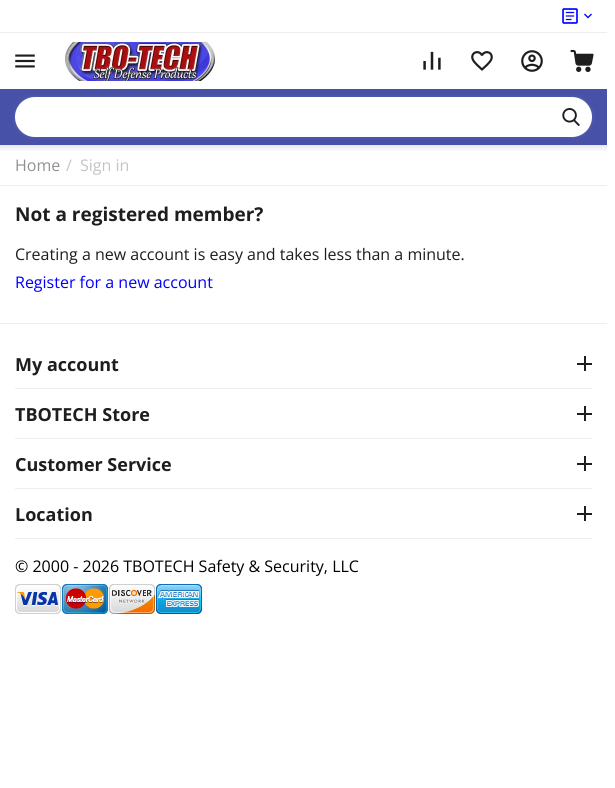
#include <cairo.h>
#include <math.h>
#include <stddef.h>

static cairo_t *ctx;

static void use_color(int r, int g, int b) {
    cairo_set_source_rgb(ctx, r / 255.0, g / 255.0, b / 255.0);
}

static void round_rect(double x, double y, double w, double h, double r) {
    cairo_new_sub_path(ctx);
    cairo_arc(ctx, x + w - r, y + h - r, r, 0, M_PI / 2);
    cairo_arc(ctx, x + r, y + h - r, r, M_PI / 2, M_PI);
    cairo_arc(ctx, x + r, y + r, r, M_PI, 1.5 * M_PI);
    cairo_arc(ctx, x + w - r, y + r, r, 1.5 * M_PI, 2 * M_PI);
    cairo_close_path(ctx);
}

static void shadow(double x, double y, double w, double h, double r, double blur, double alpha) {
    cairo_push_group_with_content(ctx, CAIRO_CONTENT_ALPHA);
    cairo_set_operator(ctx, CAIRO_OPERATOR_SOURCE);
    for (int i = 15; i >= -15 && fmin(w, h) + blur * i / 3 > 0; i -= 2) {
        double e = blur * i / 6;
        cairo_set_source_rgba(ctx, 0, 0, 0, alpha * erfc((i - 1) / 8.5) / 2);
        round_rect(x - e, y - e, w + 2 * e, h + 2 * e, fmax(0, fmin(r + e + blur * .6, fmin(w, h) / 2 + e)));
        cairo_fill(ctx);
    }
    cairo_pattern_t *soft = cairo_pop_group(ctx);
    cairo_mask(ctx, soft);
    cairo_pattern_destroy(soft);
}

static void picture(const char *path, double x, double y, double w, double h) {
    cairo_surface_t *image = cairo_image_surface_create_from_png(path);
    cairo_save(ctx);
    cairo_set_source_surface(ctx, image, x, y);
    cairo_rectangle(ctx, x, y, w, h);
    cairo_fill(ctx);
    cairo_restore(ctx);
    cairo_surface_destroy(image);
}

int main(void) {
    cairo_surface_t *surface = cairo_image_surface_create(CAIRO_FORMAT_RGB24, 615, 788);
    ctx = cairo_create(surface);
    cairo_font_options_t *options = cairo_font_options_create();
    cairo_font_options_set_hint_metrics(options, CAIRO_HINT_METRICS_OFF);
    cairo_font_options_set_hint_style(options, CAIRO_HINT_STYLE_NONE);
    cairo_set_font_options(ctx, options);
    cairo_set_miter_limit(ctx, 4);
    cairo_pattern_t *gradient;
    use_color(255, 255, 255);
    cairo_paint(ctx);
    use_color(238, 238, 238);
    cairo_rectangle(ctx, 0, 32, 607, 1);
    cairo_fill(ctx);
    picture("img1.png", 562, 8, 16, 16);
    picture("img2.png", 584, 13, 8, 6);
    picture("img3.png", 65, 42, 150, 39);
    picture("img4.png", 423, 51, 18, 19);
    picture("img5.png", 471, 51, 22, 20);
    picture("img6.png", 521, 50, 22, 22);
    picture("img7.png", 570, 49, 24, 23);
    picture("img8.png", 15, 54, 20, 14);
    use_color(70, 81, 167);
    cairo_rectangle(ctx, 0, 89, 607, 56);
    cairo_fill(ctx);
    use_color(255, 255, 255);
    shadow(15, 97, 577, 40, 20, 2.5, 0.1);
    use_color(255, 255, 255);
    round_rect(15, 97, 577, 40, 20);
    cairo_fill(ctx);
    picture("img9.png", 562, 108, 18, 18);
    gradient = cairo_pattern_create_linear(304, 145, 304, 152);
    cairo_pattern_add_color_stop_rgba(gradient, 0, 0.902, 0.902, 0.902, 1);
    cairo_pattern_add_color_stop_rgba(gradient, 1, 1, 1, 1, 1);
    cairo_set_source(ctx, gradient);
    cairo_pattern_destroy(gradient);
    cairo_rectangle(ctx, 0, 145, 607, 6);
    cairo_fill(ctx);
    use_color(238, 238, 238);
    cairo_rectangle(ctx, 0, 185, 607, 1);
    cairo_fill(ctx);
    cairo_select_font_face(ctx, "Open Sans", CAIRO_FONT_SLANT_NORMAL, CAIRO_FONT_WEIGHT_NORMAL);
    cairo_set_font_size(ctx, 16);
    use_color(145, 145, 145);
    cairo_move_to(ctx, 15, 171);
    cairo_show_text(ctx, "Home");
    use_color(196, 196, 196);
    cairo_move_to(ctx, 66, 171);
    cairo_show_text(ctx, "/");
    cairo_move_to(ctx, 80, 171);
    cairo_show_text(ctx, "Sign in");
    cairo_select_font_face(ctx, "Open Sans", CAIRO_FONT_SLANT_NORMAL, CAIRO_FONT_WEIGHT_BOLD);
    cairo_set_font_size(ctx, 19);
    use_color(30, 30, 30);
    cairo_move_to(ctx, 15, 221);
    cairo_show_text(ctx, "Not a registered member?");
    cairo_select_font_face(ctx, "Open Sans", CAIRO_FONT_SLANT_NORMAL, CAIRO_FONT_WEIGHT_NORMAL);
    cairo_set_font_size(ctx, 16);
    cairo_move_to(ctx, 15, 260);
    cairo_show_text(ctx, "Creating a new account is easy and takes less than a minute.");
    use_color(0, 0, 255);
    cairo_move_to(ctx, 15, 288);
    cairo_show_text(ctx, "Register for a new account");
    use_color(238, 238, 238);
    cairo_rectangle(ctx, 0, 323, 607, 1);
    cairo_fill(ctx);
    cairo_rectangle(ctx, 15, 388, 577, 1);
    cairo_fill(ctx);
    cairo_select_font_face(ctx, "Open Sans", CAIRO_FONT_SLANT_NORMAL, CAIRO_FONT_WEIGHT_BOLD);
    cairo_set_font_size(ctx, 18);
    use_color(30, 30, 30);
    cairo_move_to(ctx, 15, 371);
    cairo_show_text(ctx, "My account");
    cairo_rectangle(ctx, 584, 356, 2, 15);
    cairo_fill(ctx);
    cairo_rectangle(ctx, 577, 363, 15, 2);
    cairo_fill(ctx);
    use_color(238, 238, 238);
    cairo_rectangle(ctx, 15, 438, 577, 1);
    cairo_fill(ctx);
    use_color(30, 30, 30);
    cairo_move_to(ctx, 15, 421);
    cairo_show_text(ctx, "TBOTECH Store");
    cairo_rectangle(ctx, 584, 406, 2, 15);
    cairo_fill(ctx);
    cairo_rectangle(ctx, 577, 413, 15, 2);
    cairo_fill(ctx);
    use_color(238, 238, 238);
    cairo_rectangle(ctx, 15, 488, 577, 1);
    cairo_fill(ctx);
    use_color(30, 30, 30);
    cairo_move_to(ctx, 15, 471);
    cairo_show_text(ctx, "Customer Service");
    cairo_rectangle(ctx, 584, 456, 2, 15);
    cairo_fill(ctx);
    cairo_rectangle(ctx, 577, 463, 15, 2);
    cairo_fill(ctx);
    use_color(238, 238, 238);
    cairo_rectangle(ctx, 15, 538, 577, 1);
    cairo_fill(ctx);
    use_color(30, 30, 30);
    cairo_move_to(ctx, 15, 521);
    cairo_show_text(ctx, "Location");
    cairo_rectangle(ctx, 584, 506, 2, 15);
    cairo_fill(ctx);
    cairo_rectangle(ctx, 577, 513, 15, 2);
    cairo_fill(ctx);
    cairo_select_font_face(ctx, "Open Sans", CAIRO_FONT_SLANT_NORMAL, CAIRO_FONT_WEIGHT_NORMAL);
    cairo_set_font_size(ctx, 16);
    use_color(0, 0, 0);
    cairo_move_to(ctx, 15, 572);
    cairo_show_text(ctx, "© 2000 - 2026 TBOTECH Safety & Security, LLC");
    picture("img10.png", 15, 584, 187, 30);
    cairo_surface_write_to_png(surface, "result.png");
    cairo_font_options_destroy(options);
    cairo_destroy(ctx);
    cairo_surface_destroy(surface);
    return 0;
}
